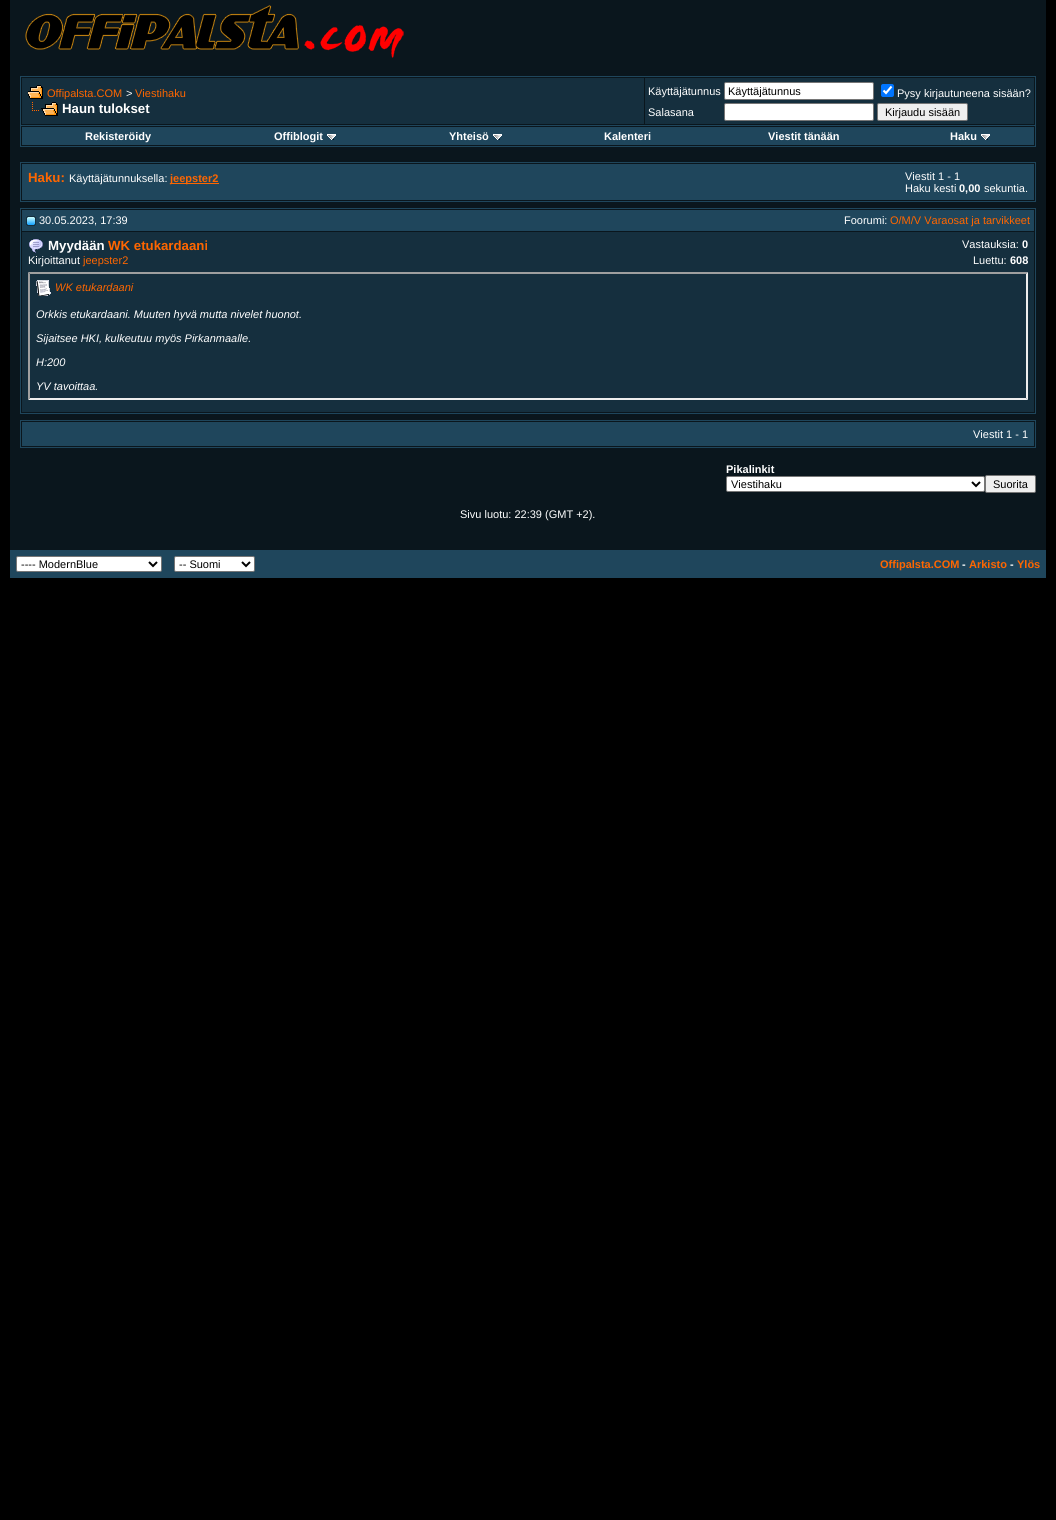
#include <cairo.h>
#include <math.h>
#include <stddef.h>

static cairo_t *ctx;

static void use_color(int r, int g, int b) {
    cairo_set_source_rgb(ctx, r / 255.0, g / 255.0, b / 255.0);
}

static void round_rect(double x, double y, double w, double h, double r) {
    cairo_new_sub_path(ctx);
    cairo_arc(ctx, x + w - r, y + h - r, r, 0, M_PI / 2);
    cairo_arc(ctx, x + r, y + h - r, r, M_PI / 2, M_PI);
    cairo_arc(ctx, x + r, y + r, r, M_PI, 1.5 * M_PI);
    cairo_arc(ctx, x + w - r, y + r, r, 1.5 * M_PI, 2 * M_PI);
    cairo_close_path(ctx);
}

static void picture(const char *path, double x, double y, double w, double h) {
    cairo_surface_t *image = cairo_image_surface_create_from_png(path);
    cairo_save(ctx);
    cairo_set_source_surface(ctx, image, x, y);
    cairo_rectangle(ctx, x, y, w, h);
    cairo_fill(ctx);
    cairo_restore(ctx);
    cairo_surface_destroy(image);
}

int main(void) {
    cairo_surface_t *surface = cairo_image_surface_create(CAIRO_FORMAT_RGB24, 1056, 1520);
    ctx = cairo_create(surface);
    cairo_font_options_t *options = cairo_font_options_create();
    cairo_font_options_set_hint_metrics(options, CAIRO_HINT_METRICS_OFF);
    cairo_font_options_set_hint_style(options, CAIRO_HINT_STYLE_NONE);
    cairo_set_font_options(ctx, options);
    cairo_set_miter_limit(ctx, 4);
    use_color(0, 0, 0);
    cairo_paint(ctx);
    use_color(10, 22, 29);
    cairo_rectangle(ctx, 10, 0, 1036, 550);
    cairo_fill(ctx);
    picture("img1.png", 25, 5, 379, 53);
    cairo_rectangle(ctx, 20.5, 76.5, 1015, 49);
    use_color(31, 70, 92);
    cairo_set_line_width(ctx, 1);
    cairo_stroke(ctx);
    use_color(21, 47, 62);
    cairo_rectangle(ctx, 22, 78, 622, 46);
    cairo_fill(ctx);
    picture("img2.png", 28, 85, 15, 14);
    cairo_select_font_face(ctx, "Liberation Sans", CAIRO_FONT_SLANT_NORMAL, CAIRO_FONT_WEIGHT_NORMAL);
    cairo_set_font_size(ctx, 11);
    use_color(255, 102, 0);
    cairo_move_to(ctx, 47, 97);
    cairo_show_text(ctx, "Offipalsta.COM");
    use_color(255, 255, 255);
    cairo_move_to(ctx, 126, 97);
    cairo_show_text(ctx, ">");
    use_color(255, 102, 0);
    cairo_move_to(ctx, 135, 97);
    cairo_show_text(ctx, "Viestihaku");
    picture("img3.png", 32, 102, 26, 15);
    cairo_select_font_face(ctx, "Liberation Sans", CAIRO_FONT_SLANT_NORMAL, CAIRO_FONT_WEIGHT_BOLD);
    cairo_set_font_size(ctx, 13.25);
    use_color(255, 255, 255);
    cairo_move_to(ctx, 62, 113);
    cairo_show_text(ctx, "Haun tulokset");
    use_color(21, 47, 62);
    cairo_rectangle(ctx, 645, 78, 389, 46);
    cairo_fill(ctx);
    cairo_select_font_face(ctx, "Liberation Sans", CAIRO_FONT_SLANT_NORMAL, CAIRO_FONT_WEIGHT_NORMAL);
    cairo_set_font_size(ctx, 11);
    use_color(255, 255, 255);
    cairo_move_to(ctx, 648, 95);
    cairo_show_text(ctx, "Käyttäjätunnus");
    round_rect(724.5, 82.5, 149, 17, 1.5);
    cairo_fill_preserve(ctx);
    use_color(118, 118, 118);
    cairo_stroke(ctx);
    cairo_save(ctx);
    cairo_rectangle(ctx, 728, 85, 142, 12);
    cairo_clip(ctx);
    use_color(0, 0, 0);
    cairo_move_to(ctx, 728, 95);
    cairo_show_text(ctx, "Käyttäjätunnus");
    cairo_restore(ctx);
    use_color(0, 117, 255);
    round_rect(881, 84, 13, 13, 2);
    cairo_fill(ctx);
    cairo_new_path(ctx);
    cairo_move_to(ctx, 883.5, 90.5);
    cairo_line_to(ctx, 886, 93);
    cairo_line_to(ctx, 891.5, 86.5);
    use_color(255, 255, 255);
    cairo_set_line_width(ctx, 2.1);
    cairo_stroke(ctx);
    cairo_move_to(ctx, 897, 97);
    cairo_show_text(ctx, "Pysy kirjautuneena sisään?");
    cairo_move_to(ctx, 648, 116);
    cairo_show_text(ctx, "Salasana");
    round_rect(724.5, 103.5, 149, 17, 1.5);
    cairo_fill_preserve(ctx);
    use_color(118, 118, 118);
    cairo_set_line_width(ctx, 1);
    cairo_stroke(ctx);
    use_color(239, 239, 239);
    round_rect(877.5, 103.5, 90, 17, 1.5);
    cairo_fill_preserve(ctx);
    use_color(118, 118, 118);
    cairo_stroke(ctx);
    use_color(0, 0, 0);
    cairo_move_to(ctx, 885, 116);
    cairo_show_text(ctx, "Kirjaudu sisään");
    use_color(31, 70, 92);
    cairo_rectangle(ctx, 1035, 126, 1, 21);
    cairo_fill(ctx);
    cairo_rectangle(ctx, 20, 146, 1016, 1);
    cairo_fill(ctx);
    cairo_rectangle(ctx, 20, 126, 1, 21);
    cairo_fill(ctx);
    cairo_rectangle(ctx, 22, 127, 1012, 18);
    cairo_fill(ctx);
    cairo_select_font_face(ctx, "Liberation Sans", CAIRO_FONT_SLANT_NORMAL, CAIRO_FONT_WEIGHT_BOLD);
    use_color(255, 255, 255);
    cairo_move_to(ctx, 85, 140);
    cairo_show_text(ctx, "Rekisteröidy");
    cairo_move_to(ctx, 274, 140);
    cairo_show_text(ctx, "Offiblogit");
    picture("img4.png", 327, 134, 9, 6);
    cairo_move_to(ctx, 449, 140);
    cairo_show_text(ctx, "Yhteisö");
    picture("img4.png", 493, 134, 9, 6);
    cairo_move_to(ctx, 604, 140);
    cairo_show_text(ctx, "Kalenteri");
    cairo_move_to(ctx, 768, 140);
    cairo_show_text(ctx, "Viestit tänään");
    cairo_move_to(ctx, 950, 140);
    cairo_show_text(ctx, "Haku");
    picture("img4.png", 981, 134, 9, 6);
    cairo_rectangle(ctx, 20.5, 162.5, 1015, 39);
    use_color(31, 70, 92);
    cairo_stroke(ctx);
    cairo_rectangle(ctx, 22, 164, 1012, 36);
    cairo_fill(ctx);
    cairo_set_font_size(ctx, 13.25);
    use_color(255, 102, 0);
    cairo_move_to(ctx, 28, 182);
    cairo_show_text(ctx, "Haku:");
    cairo_select_font_face(ctx, "Liberation Sans", CAIRO_FONT_SLANT_NORMAL, CAIRO_FONT_WEIGHT_NORMAL);
    cairo_set_font_size(ctx, 11);
    use_color(255, 255, 255);
    cairo_move_to(ctx, 69, 182);
    cairo_show_text(ctx, "Käyttäjätunnuksella:");
    use_color(255, 102, 0);
    cairo_rectangle(ctx, 170, 183, 49, 1);
    cairo_fill(ctx);
    cairo_select_font_face(ctx, "Liberation Sans", CAIRO_FONT_SLANT_NORMAL, CAIRO_FONT_WEIGHT_BOLD);
    cairo_move_to(ctx, 170, 182);
    cairo_show_text(ctx, "jeepster2");
    cairo_select_font_face(ctx, "Liberation Sans", CAIRO_FONT_SLANT_NORMAL, CAIRO_FONT_WEIGHT_NORMAL);
    use_color(255, 255, 255);
    cairo_move_to(ctx, 905, 180);
    cairo_show_text(ctx, "Viestit 1 - 1");
    cairo_move_to(ctx, 905, 192);
    cairo_show_text(ctx, "Haku kesti");
    cairo_select_font_face(ctx, "Liberation Sans", CAIRO_FONT_SLANT_NORMAL, CAIRO_FONT_WEIGHT_BOLD);
    cairo_move_to(ctx, 959, 192);
    cairo_show_text(ctx, "0,00");
    cairo_select_font_face(ctx, "Liberation Sans", CAIRO_FONT_SLANT_NORMAL, CAIRO_FONT_WEIGHT_NORMAL);
    cairo_move_to(ctx, 984, 192);
    cairo_show_text(ctx, "sekuntia.");
    cairo_rectangle(ctx, 20.5, 208.5, 1015, 205);
    use_color(31, 70, 92);
    cairo_stroke(ctx);
    cairo_rectangle(ctx, 22, 210, 1012, 21);
    cairo_fill(ctx);
    picture("img5.png", 26, 216, 10, 10);
    use_color(255, 255, 255);
    cairo_move_to(ctx, 39, 224);
    cairo_show_text(ctx, "30.05.2023, 17:39");
    cairo_move_to(ctx, 844, 224);
    cairo_show_text(ctx, "Foorumi:");
    use_color(255, 102, 0);
    cairo_move_to(ctx, 890, 224);
    cairo_show_text(ctx, "O/M/V Varaosat ja tarvikkeet");
    use_color(21, 47, 62);
    cairo_rectangle(ctx, 22, 232, 1012, 180);
    cairo_fill(ctx);
    picture("img6.png", 29, 239, 14, 14);
    cairo_select_font_face(ctx, "Liberation Sans", CAIRO_FONT_SLANT_NORMAL, CAIRO_FONT_WEIGHT_BOLD);
    cairo_set_font_size(ctx, 13.25);
    use_color(255, 255, 255);
    cairo_move_to(ctx, 48, 250);
    cairo_show_text(ctx, "Myydään");
    use_color(255, 102, 0);
    cairo_move_to(ctx, 108, 250);
    cairo_show_text(ctx, "WK etukardaani");
    cairo_select_font_face(ctx, "Liberation Sans", CAIRO_FONT_SLANT_NORMAL, CAIRO_FONT_WEIGHT_NORMAL);
    cairo_set_font_size(ctx, 11);
    use_color(255, 255, 255);
    cairo_move_to(ctx, 962, 248);
    cairo_show_text(ctx, "Vastauksia:");
    cairo_select_font_face(ctx, "Liberation Sans", CAIRO_FONT_SLANT_NORMAL, CAIRO_FONT_WEIGHT_BOLD);
    cairo_move_to(ctx, 1022, 248);
    cairo_show_text(ctx, "0");
    cairo_select_font_face(ctx, "Liberation Sans", CAIRO_FONT_SLANT_NORMAL, CAIRO_FONT_WEIGHT_NORMAL);
    cairo_move_to(ctx, 28, 264);
    cairo_show_text(ctx, "Kirjoittanut");
    use_color(255, 102, 0);
    cairo_move_to(ctx, 83, 264);
    cairo_show_text(ctx, "jeepster2");
    use_color(255, 255, 255);
    cairo_move_to(ctx, 973, 264);
    cairo_show_text(ctx, "Luettu:");
    cairo_select_font_face(ctx, "Liberation Sans", CAIRO_FONT_SLANT_NORMAL, CAIRO_FONT_WEIGHT_BOLD);
    cairo_move_to(ctx, 1010, 264);
    cairo_show_text(ctx, "608");
    use_color(159, 159, 159);
    cairo_new_path(ctx);
    cairo_move_to(ctx, 28, 272);
    cairo_line_to(ctx, 1028, 272);
    cairo_line_to(ctx, 1026, 274);
    cairo_line_to(ctx, 30, 274);
    cairo_close_path(ctx);
    cairo_fill(ctx);
    use_color(238, 238, 238);
    cairo_new_path(ctx);
    cairo_move_to(ctx, 1028, 272);
    cairo_line_to(ctx, 1028, 400);
    cairo_line_to(ctx, 1026, 398);
    cairo_line_to(ctx, 1026, 274);
    cairo_close_path(ctx);
    cairo_fill(ctx);
    cairo_new_path(ctx);
    cairo_move_to(ctx, 1028, 400);
    cairo_line_to(ctx, 28, 400);
    cairo_line_to(ctx, 30, 398);
    cairo_line_to(ctx, 1026, 398);
    cairo_close_path(ctx);
    cairo_fill(ctx);
    use_color(159, 159, 159);
    cairo_new_path(ctx);
    cairo_move_to(ctx, 28, 400);
    cairo_line_to(ctx, 28, 272);
    cairo_line_to(ctx, 30, 274);
    cairo_line_to(ctx, 30, 398);
    cairo_close_path(ctx);
    cairo_fill(ctx);
    picture("img7.png", 36, 280, 15, 16);
    cairo_select_font_face(ctx, "Liberation Sans", CAIRO_FONT_SLANT_ITALIC, CAIRO_FONT_WEIGHT_NORMAL);
    use_color(255, 102, 0);
    cairo_move_to(ctx, 55, 291);
    cairo_show_text(ctx, "WK etukardaani");
    use_color(255, 255, 255);
    cairo_move_to(ctx, 36, 318);
    cairo_show_text(ctx, "Orkkis etukardaani. Muuten hyvä mutta nivelet huonot.");
    cairo_move_to(ctx, 36, 342);
    cairo_show_text(ctx, "Sijaitsee HKI, kulkeutuu myös Pirkanmaalle.");
    cairo_move_to(ctx, 36, 366);
    cairo_show_text(ctx, "H:200");
    cairo_move_to(ctx, 36, 390);
    cairo_show_text(ctx, "YV tavoittaa.");
    cairo_rectangle(ctx, 20.5, 420.5, 1015, 27);
    use_color(31, 70, 92);
    cairo_stroke(ctx);
    cairo_rectangle(ctx, 22, 422, 1012, 24);
    cairo_fill(ctx);
    cairo_select_font_face(ctx, "Liberation Sans", CAIRO_FONT_SLANT_NORMAL, CAIRO_FONT_WEIGHT_NORMAL);
    use_color(255, 255, 255);
    cairo_move_to(ctx, 973, 438);
    cairo_show_text(ctx, "Viestit 1 - 1");
    cairo_select_font_face(ctx, "Liberation Sans", CAIRO_FONT_SLANT_NORMAL, CAIRO_FONT_WEIGHT_BOLD);
    cairo_move_to(ctx, 726, 473);
    cairo_show_text(ctx, "Pikalinkit");
    round_rect(726.5, 476.5, 258, 15, 1.5);
    cairo_fill_preserve(ctx);
    use_color(118, 118, 118);
    cairo_stroke(ctx);
    cairo_new_path(ctx);
    cairo_move_to(ctx, 972, 482);
    cairo_line_to(ctx, 976, 486);
    cairo_line_to(ctx, 980, 482);
    use_color(0, 0, 0);
    cairo_set_line_width(ctx, 2);
    cairo_stroke(ctx);
    cairo_select_font_face(ctx, "Liberation Sans", CAIRO_FONT_SLANT_NORMAL, CAIRO_FONT_WEIGHT_NORMAL);
    cairo_move_to(ctx, 731, 488);
    cairo_show_text(ctx, "Viestihaku");
    use_color(239, 239, 239);
    round_rect(985.5, 475.5, 50, 17, 1.5);
    cairo_fill_preserve(ctx);
    use_color(118, 118, 118);
    cairo_set_line_width(ctx, 1);
    cairo_stroke(ctx);
    use_color(0, 0, 0);
    cairo_move_to(ctx, 993, 488);
    cairo_show_text(ctx, "Suorita");
    use_color(255, 255, 255);
    cairo_move_to(ctx, 460, 518);
    cairo_show_text(ctx, "Sivu luotu: 22:39 (GMT +2).");
    use_color(31, 70, 92);
    cairo_rectangle(ctx, 10, 550, 1036, 28);
    cairo_fill(ctx);
    use_color(255, 255, 255);
    round_rect(16.5, 556.5, 145, 15, 1.5);
    cairo_fill_preserve(ctx);
    use_color(118, 118, 118);
    cairo_stroke(ctx);
    cairo_new_path(ctx);
    cairo_move_to(ctx, 149, 562);
    cairo_line_to(ctx, 153, 566);
    cairo_line_to(ctx, 157, 562);
    use_color(0, 0, 0);
    cairo_set_line_width(ctx, 2);
    cairo_stroke(ctx);
    cairo_move_to(ctx, 21, 568);
    cairo_show_text(ctx, "---- ModernBlue");
    use_color(255, 255, 255);
    round_rect(174.5, 556.5, 80, 15, 1.5);
    cairo_fill_preserve(ctx);
    use_color(118, 118, 118);
    cairo_set_line_width(ctx, 1);
    cairo_stroke(ctx);
    cairo_new_path(ctx);
    cairo_move_to(ctx, 242, 562);
    cairo_line_to(ctx, 246, 566);
    cairo_line_to(ctx, 250, 562);
    use_color(0, 0, 0);
    cairo_set_line_width(ctx, 2);
    cairo_stroke(ctx);
    cairo_move_to(ctx, 179, 568);
    cairo_show_text(ctx, "-- Suomi");
    cairo_select_font_face(ctx, "Liberation Sans", CAIRO_FONT_SLANT_NORMAL, CAIRO_FONT_WEIGHT_BOLD);
    use_color(255, 102, 0);
    cairo_move_to(ctx, 880, 568);
    cairo_show_text(ctx, "Offipalsta.COM");
    use_color(255, 255, 255);
    cairo_move_to(ctx, 962, 568);
    cairo_show_text(ctx, "-");
    use_color(255, 102, 0);
    cairo_move_to(ctx, 969, 568);
    cairo_show_text(ctx, "Arkisto");
    use_color(255, 255, 255);
    cairo_move_to(ctx, 1010, 568);
    cairo_show_text(ctx, "-");
    use_color(255, 102, 0);
    cairo_move_to(ctx, 1017, 568);
    cairo_show_text(ctx, "Ylös");
    cairo_surface_write_to_png(surface, "result.png");
    cairo_font_options_destroy(options);
    cairo_destroy(ctx);
    cairo_surface_destroy(surface);
    return 0;
}
